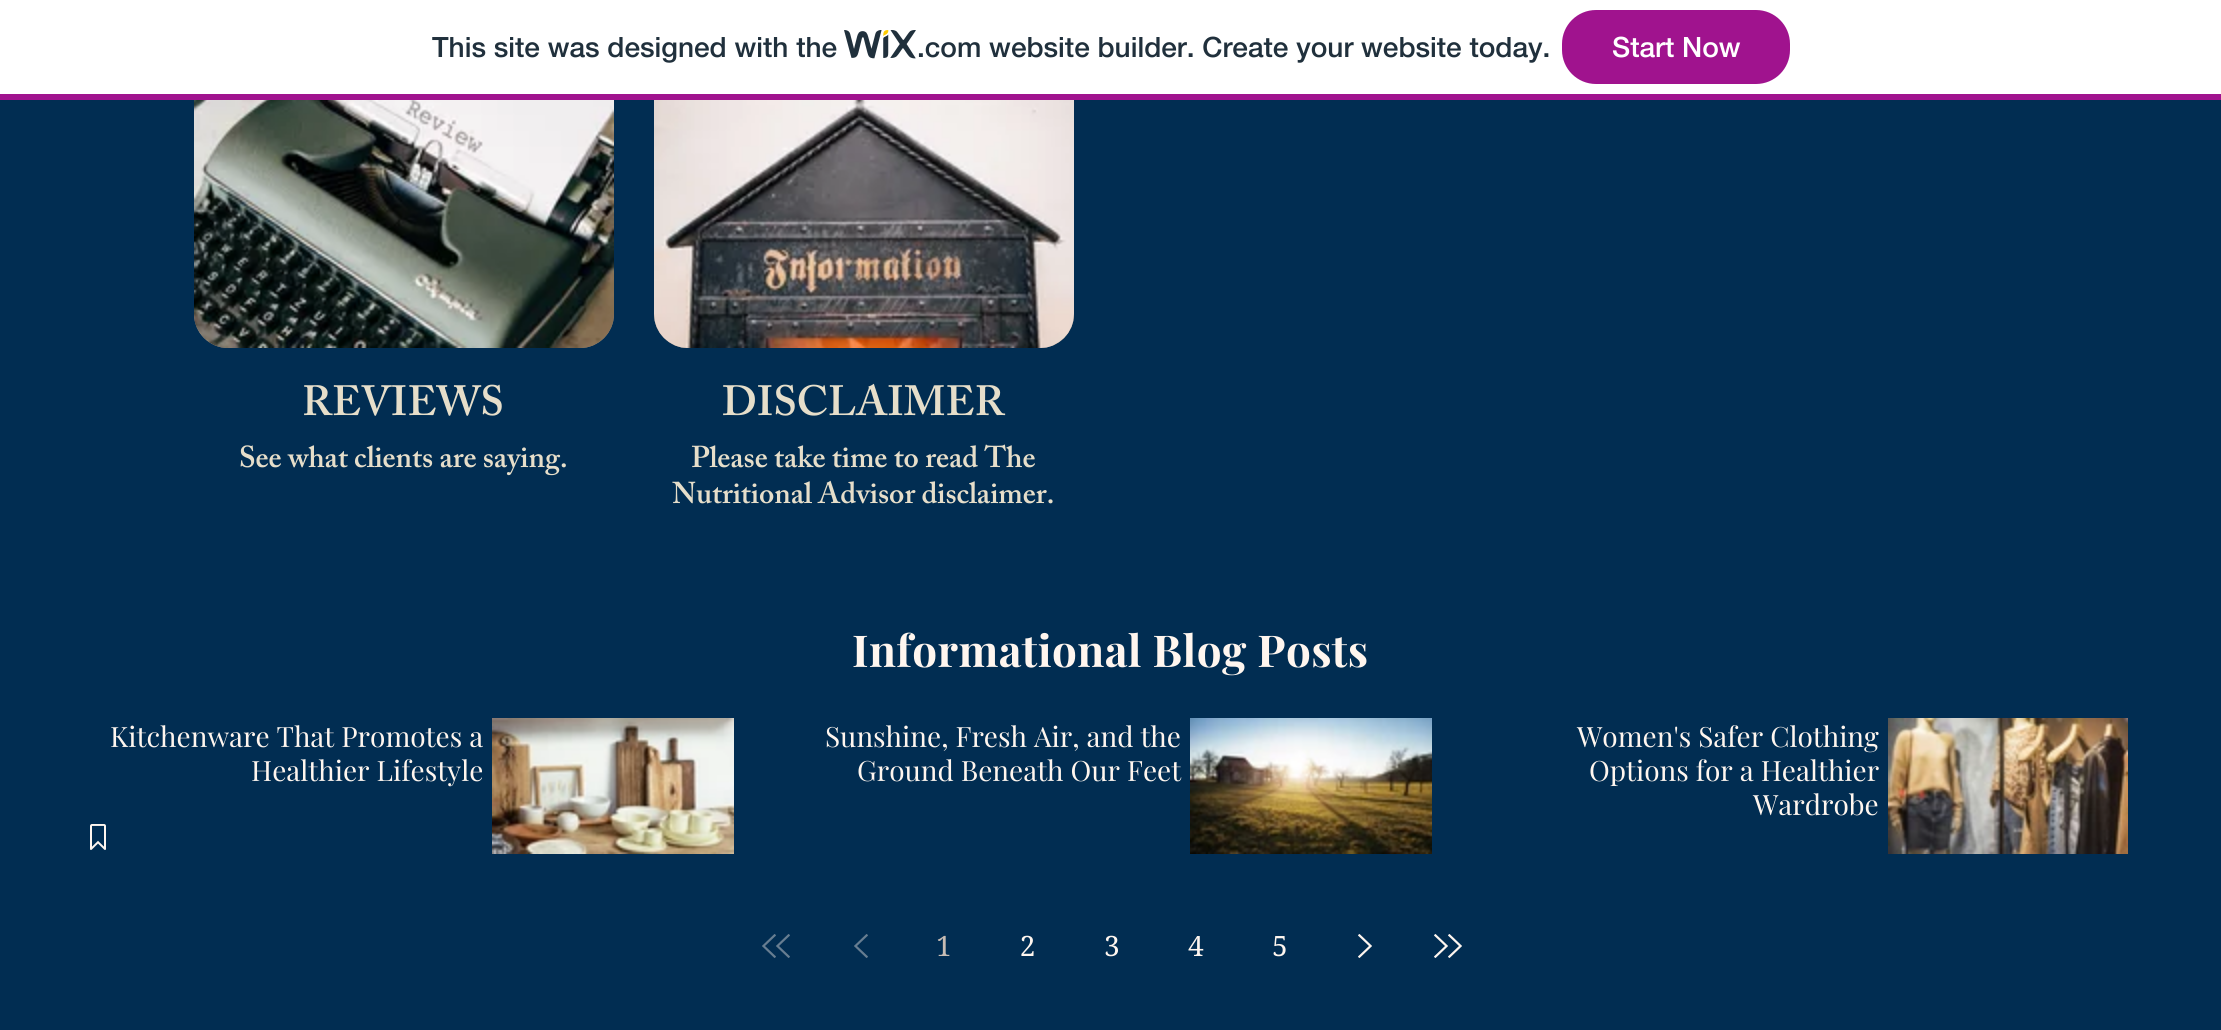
#include <cairo.h>
#include <math.h>
#include <stddef.h>

static cairo_t *ctx;

static void use_color(int r, int g, int b) {
    cairo_set_source_rgb(ctx, r / 255.0, g / 255.0, b / 255.0);
}

static void spaced_text(double x, double y, const char *s, double letter, double word) {
    cairo_move_to(ctx, x, y);
    while (*s) {
        char ch[5] = {0};
        int n = 0;
        do ch[n++] = *s++; while ((*s & 0xC0) == 0x80);
        cairo_show_text(ctx, ch);
        cairo_rel_move_to(ctx, letter + word * (*ch == ' '), 0);
    }
}

static void round_rect(double x, double y, double w, double h, double r) {
    cairo_new_sub_path(ctx);
    cairo_arc(ctx, x + w - r, y + h - r, r, 0, M_PI / 2);
    cairo_arc(ctx, x + r, y + h - r, r, M_PI / 2, M_PI);
    cairo_arc(ctx, x + r, y + r, r, M_PI, 1.5 * M_PI);
    cairo_arc(ctx, x + w - r, y + r, r, 1.5 * M_PI, 2 * M_PI);
    cairo_close_path(ctx);
}

static void picture(const char *path, double x, double y, double w, double h) {
    cairo_surface_t *image = cairo_image_surface_create_from_png(path);
    cairo_save(ctx);
    cairo_set_source_surface(ctx, image, x, y);
    cairo_rectangle(ctx, x, y, w, h);
    cairo_fill(ctx);
    cairo_restore(ctx);
    cairo_surface_destroy(image);
}

int main(void) {
    cairo_surface_t *surface = cairo_image_surface_create(CAIRO_FORMAT_RGB24, 2221, 1030);
    ctx = cairo_create(surface);
    cairo_font_options_t *options = cairo_font_options_create();
    cairo_font_options_set_hint_metrics(options, CAIRO_HINT_METRICS_OFF);
    cairo_font_options_set_hint_style(options, CAIRO_HINT_STYLE_NONE);
    cairo_set_font_options(ctx, options);
    cairo_set_miter_limit(ctx, 4);
    use_color(1, 45, 82);
    cairo_paint(ctx);
    use_color(142, 130, 121);
    round_rect(194, 36, 420, 312, 34);
    cairo_fill(ctx);
    round_rect(654, 36, 420, 312, 34);
    cairo_fill(ctx);
    use_color(255, 255, 255);
    cairo_rectangle(ctx, 0, 0, 2221, 94);
    cairo_fill(ctx);
    use_color(160, 19, 142);
    cairo_rectangle(ctx, 0, 94, 2221, 6);
    cairo_fill(ctx);
    cairo_select_font_face(ctx, "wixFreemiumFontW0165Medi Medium", CAIRO_FONT_SLANT_NORMAL, CAIRO_FONT_WEIGHT_NORMAL);
    cairo_set_font_size(ctx, 28);
    use_color(32, 48, 60);
    cairo_move_to(ctx, 432, 57);
    cairo_show_text(ctx, "This site was designed with the");
    picture("img1.png", 844, 30, 72, 29);
    cairo_move_to(ctx, 917, 57);
    cairo_show_text(ctx, ".com website builder. Create your website today.");
    use_color(160, 19, 142);
    round_rect(1563, 11, 226, 72, 33);
    cairo_fill_preserve(ctx);
    cairo_stroke(ctx);
    use_color(255, 255, 255);
    cairo_move_to(ctx, 1612, 57);
    cairo_show_text(ctx, "Start Now");
    picture("img2.png", 194, 100, 420, 248);
    cairo_select_font_face(ctx, "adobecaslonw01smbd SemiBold", CAIRO_FONT_SLANT_NORMAL, CAIRO_FONT_WEIGHT_NORMAL);
    cairo_set_font_size(ctx, 42);
    use_color(230, 222, 202);
    cairo_move_to(ctx, 302, 415);
    cairo_show_text(ctx, "REVIEWS");
    cairo_set_font_size(ctx, 30);
    cairo_move_to(ctx, 239, 467);
    cairo_show_text(ctx, "See what clients are saying.");
    picture("img3.png", 654, 100, 420, 248);
    cairo_set_font_size(ctx, 42);
    cairo_move_to(ctx, 722, 415);
    cairo_show_text(ctx, "DISCLAIMER");
    cairo_set_font_size(ctx, 30);
    cairo_move_to(ctx, 691, 467);
    cairo_show_text(ctx, "Please take time to read The");
    cairo_move_to(ctx, 672, 503);
    cairo_show_text(ctx, "Nutritional Advisor disclaimer.");
    cairo_select_font_face(ctx, "Playfair Display", CAIRO_FONT_SLANT_NORMAL, CAIRO_FONT_WEIGHT_BOLD);
    cairo_set_font_size(ctx, 44);
    use_color(255, 246, 239);
    spaced_text(852, 667, "Informational Blog Posts", 0.4, 0);
    cairo_select_font_face(ctx, "Playfair Display", CAIRO_FONT_SLANT_NORMAL, CAIRO_FONT_WEIGHT_NORMAL);
    cairo_set_font_size(ctx, 28);
    cairo_move_to(ctx, 110, 747);
    cairo_show_text(ctx, "Kitchenware That Promotes a");
    cairo_move_to(ctx, 251, 781);
    cairo_show_text(ctx, "Healthier Lifestyle");
    picture("img4.png", 90, 824, 16, 26);
    picture("img5.png", 492, 718, 242, 136);
    cairo_move_to(ctx, 825, 747);
    cairo_show_text(ctx, "Sunshine, Fresh Air, and the");
    cairo_move_to(ctx, 857, 781);
    cairo_show_text(ctx, "Ground Beneath Our Feet");
    picture("img6.png", 1190, 718, 242, 136);
    cairo_move_to(ctx, 1577, 747);
    cairo_show_text(ctx, "Women's Safer Clothing");
    cairo_move_to(ctx, 1589, 781);
    cairo_show_text(ctx, "Options for a Healthier");
    cairo_move_to(ctx, 1753, 815);
    cairo_show_text(ctx, "Wardrobe");
    picture("img7.png", 1888, 718, 240, 136);
    picture("img8.png", 762, 934, 14, 24);
    picture("img8.png", 776, 934, 14, 24);
    picture("img8.png", 854, 934, 14, 24);
    cairo_select_font_face(ctx, "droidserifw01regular", CAIRO_FONT_SLANT_NORMAL, CAIRO_FONT_WEIGHT_NORMAL);
    use_color(199, 188, 180);
    cairo_move_to(ctx, 936, 956);
    cairo_show_text(ctx, "1");
    use_color(255, 246, 239);
    cairo_move_to(ctx, 1020, 956);
    cairo_show_text(ctx, "2");
    cairo_move_to(ctx, 1104, 956);
    cairo_show_text(ctx, "3");
    cairo_move_to(ctx, 1188, 956);
    cairo_show_text(ctx, "4");
    cairo_move_to(ctx, 1272, 956);
    cairo_show_text(ctx, "5");
    picture("img9.png", 1358, 934, 14, 24);
    picture("img9.png", 1434, 934, 14, 24);
    picture("img9.png", 1448, 934, 14, 24);
    cairo_surface_write_to_png(surface, "result.png");
    cairo_font_options_destroy(options);
    cairo_destroy(ctx);
    cairo_surface_destroy(surface);
    return 0;
}
